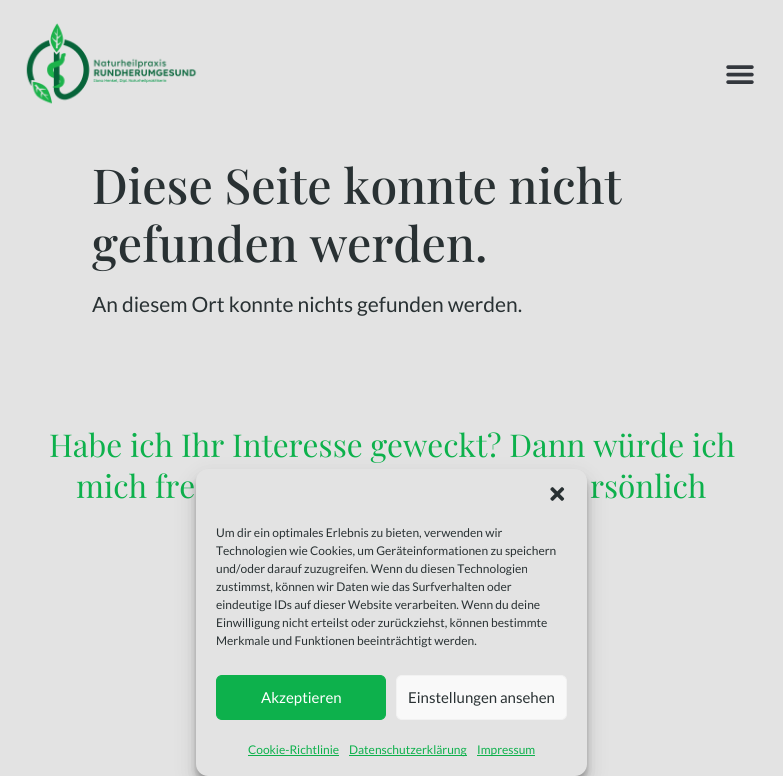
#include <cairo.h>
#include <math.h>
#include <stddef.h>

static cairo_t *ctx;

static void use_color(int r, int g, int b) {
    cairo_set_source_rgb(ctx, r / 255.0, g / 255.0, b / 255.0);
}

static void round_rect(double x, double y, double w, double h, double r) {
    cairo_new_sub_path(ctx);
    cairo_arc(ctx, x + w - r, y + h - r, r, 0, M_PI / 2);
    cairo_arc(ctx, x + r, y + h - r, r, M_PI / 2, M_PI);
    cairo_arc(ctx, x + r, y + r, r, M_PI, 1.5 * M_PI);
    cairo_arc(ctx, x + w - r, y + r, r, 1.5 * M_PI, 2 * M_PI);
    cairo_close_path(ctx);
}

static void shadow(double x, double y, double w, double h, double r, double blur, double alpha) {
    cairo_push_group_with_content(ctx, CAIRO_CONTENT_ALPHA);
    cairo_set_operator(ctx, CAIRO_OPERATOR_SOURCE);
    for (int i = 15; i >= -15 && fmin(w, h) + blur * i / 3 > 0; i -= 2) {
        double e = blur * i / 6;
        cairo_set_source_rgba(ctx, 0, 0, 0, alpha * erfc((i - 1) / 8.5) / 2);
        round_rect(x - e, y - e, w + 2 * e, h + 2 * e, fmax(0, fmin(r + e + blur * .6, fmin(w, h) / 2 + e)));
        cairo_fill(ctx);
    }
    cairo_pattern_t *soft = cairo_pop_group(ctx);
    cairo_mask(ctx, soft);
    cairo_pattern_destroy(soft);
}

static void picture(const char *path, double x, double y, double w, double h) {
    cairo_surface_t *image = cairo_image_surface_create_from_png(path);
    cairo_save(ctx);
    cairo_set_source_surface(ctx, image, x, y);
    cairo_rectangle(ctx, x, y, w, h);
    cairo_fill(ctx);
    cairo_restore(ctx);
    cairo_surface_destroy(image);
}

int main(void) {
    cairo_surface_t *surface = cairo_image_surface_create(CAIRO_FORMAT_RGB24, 783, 776);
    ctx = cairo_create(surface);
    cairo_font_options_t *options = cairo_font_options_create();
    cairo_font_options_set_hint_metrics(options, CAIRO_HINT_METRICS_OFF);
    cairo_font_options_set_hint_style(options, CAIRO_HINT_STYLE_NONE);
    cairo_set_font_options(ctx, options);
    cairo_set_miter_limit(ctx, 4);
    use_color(227, 227, 227);
    cairo_paint(ctx);
    picture("img1.png", 26, 23, 171, 81);
    picture("img2.png", 726, 65, 28, 19);
    cairo_select_font_face(ctx, "Playfair Display Medium", CAIRO_FONT_SLANT_NORMAL, CAIRO_FONT_WEIGHT_NORMAL);
    cairo_set_font_size(ctx, 48.25);
    use_color(41, 49, 51);
    cairo_move_to(ctx, 92, 204);
    cairo_show_text(ctx, "Diese Seite konnte nicht");
    cairo_move_to(ctx, 92, 262);
    cairo_show_text(ctx, "gefunden werden.");
    cairo_select_font_face(ctx, "Lato", CAIRO_FONT_SLANT_NORMAL, CAIRO_FONT_WEIGHT_NORMAL);
    cairo_set_font_size(ctx, 21);
    cairo_move_to(ctx, 92, 312);
    cairo_show_text(ctx, "An diesem Ort konnte nichts gefunden werden.");
    cairo_select_font_face(ctx, "Playfair Display", CAIRO_FONT_SLANT_NORMAL, CAIRO_FONT_WEIGHT_NORMAL);
    cairo_set_font_size(ctx, 31.5);
    use_color(13, 177, 76);
    cairo_move_to(ctx, 49, 457);
    cairo_show_text(ctx, "Habe ich Ihr Interesse geweckt? Dann würde ich");
    cairo_move_to(ctx, 76, 498);
    cairo_show_text(ctx, "mich fre");
    cairo_move_to(ctx, 590, 498);
    cairo_show_text(ctx, "rsönlich");
    use_color(0, 0, 0);
    shadow(196, 475, 391, 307, 12, 3, 0.23);
    shadow(196, 479, 391, 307, 12, 10, 0.19);
    use_color(227, 227, 227);
    round_rect(196, 469, 391, 307, 12);
    cairo_fill(ctx);
    picture("img3.png", 550, 487, 15, 14);
    cairo_select_font_face(ctx, "Lato", CAIRO_FONT_SLANT_NORMAL, CAIRO_FONT_WEIGHT_NORMAL);
    cairo_set_font_size(ctx, 12);
    use_color(41, 49, 51);
    cairo_move_to(ctx, 216, 537);
    cairo_show_text(ctx, "Um dir ein optimales Erlebnis zu bieten, verwenden wir");
    cairo_move_to(ctx, 216, 555);
    cairo_show_text(ctx, "Technologien wie Cookies, um Geräteinformationen zu speichern");
    cairo_move_to(ctx, 216, 573);
    cairo_show_text(ctx, "und/oder darauf zuzugreifen. Wenn du diesen Technologien");
    cairo_move_to(ctx, 216, 591);
    cairo_show_text(ctx, "zustimmst, können wir Daten wie das Surfverhalten oder");
    cairo_move_to(ctx, 216, 609);
    cairo_show_text(ctx, "eindeutige IDs auf dieser Website verarbeiten. Wenn du deine");
    cairo_move_to(ctx, 216, 627);
    cairo_show_text(ctx, "Einwilligung nicht erteilst oder zurückziehst, können bestimmte");
    cairo_move_to(ctx, 216, 645);
    cairo_show_text(ctx, "Merkmale und Funktionen beeinträchtigt werden.");
    use_color(13, 177, 76);
    round_rect(216.5, 675.5, 169, 44, 5.5);
    cairo_fill_preserve(ctx);
    cairo_set_line_width(ctx, 1);
    cairo_stroke(ctx);
    cairo_set_font_size(ctx, 15);
    use_color(255, 255, 255);
    cairo_move_to(ctx, 261, 703);
    cairo_show_text(ctx, "Akzeptieren");
    use_color(249, 249, 249);
    round_rect(396.5, 675.5, 170, 44, 5.5);
    cairo_fill_preserve(ctx);
    use_color(242, 242, 242);
    cairo_stroke(ctx);
    use_color(41, 49, 51);
    cairo_move_to(ctx, 408, 703);
    cairo_show_text(ctx, "Einstellungen ansehen");
    cairo_set_font_size(ctx, 12);
    use_color(13, 177, 76);
    cairo_move_to(ctx, 248, 754);
    cairo_show_text(ctx, "Cookie-Richtlinie");
    cairo_rectangle(ctx, 248, 755, 91, 1);
    cairo_fill(ctx);
    cairo_rectangle(ctx, 349, 755, 118, 1);
    cairo_fill(ctx);
    cairo_move_to(ctx, 349, 754);
    cairo_show_text(ctx, "Datenschutzerklärung");
    cairo_rectangle(ctx, 477, 755, 58, 1);
    cairo_fill(ctx);
    cairo_move_to(ctx, 477, 754);
    cairo_show_text(ctx, "Impressum");
    cairo_surface_write_to_png(surface, "result.png");
    cairo_font_options_destroy(options);
    cairo_destroy(ctx);
    cairo_surface_destroy(surface);
    return 0;
}
